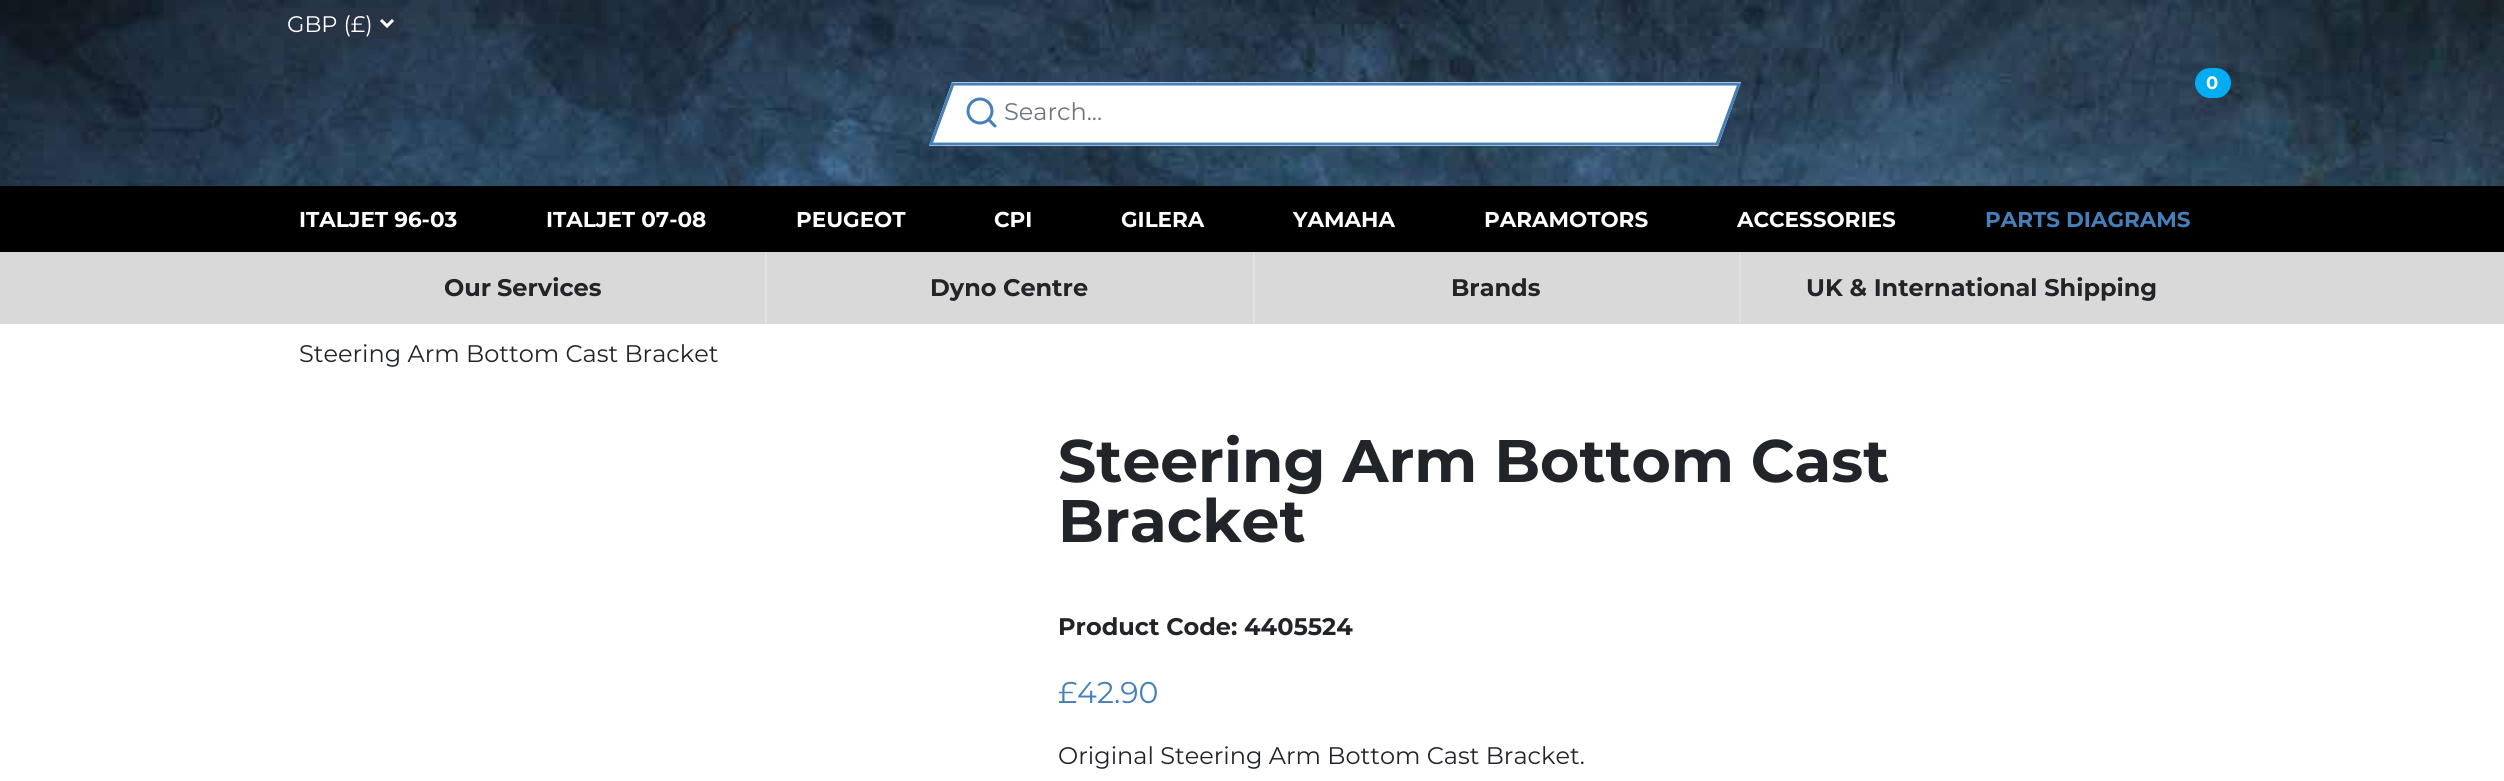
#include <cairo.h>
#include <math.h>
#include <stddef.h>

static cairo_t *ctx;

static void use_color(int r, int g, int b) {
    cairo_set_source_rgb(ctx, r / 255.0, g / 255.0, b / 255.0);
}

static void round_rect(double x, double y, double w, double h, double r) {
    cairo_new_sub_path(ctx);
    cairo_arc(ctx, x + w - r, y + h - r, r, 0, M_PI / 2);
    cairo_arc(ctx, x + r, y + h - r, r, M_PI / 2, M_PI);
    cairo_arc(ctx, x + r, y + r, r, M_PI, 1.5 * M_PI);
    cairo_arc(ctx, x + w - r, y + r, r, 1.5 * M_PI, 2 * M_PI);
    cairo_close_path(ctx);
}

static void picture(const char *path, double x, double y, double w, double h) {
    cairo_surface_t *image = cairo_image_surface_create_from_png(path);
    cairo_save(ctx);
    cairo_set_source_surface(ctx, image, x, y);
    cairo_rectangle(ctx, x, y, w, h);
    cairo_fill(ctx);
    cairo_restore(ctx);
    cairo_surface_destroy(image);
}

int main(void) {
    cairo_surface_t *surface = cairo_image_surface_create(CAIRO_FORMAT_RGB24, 2504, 781);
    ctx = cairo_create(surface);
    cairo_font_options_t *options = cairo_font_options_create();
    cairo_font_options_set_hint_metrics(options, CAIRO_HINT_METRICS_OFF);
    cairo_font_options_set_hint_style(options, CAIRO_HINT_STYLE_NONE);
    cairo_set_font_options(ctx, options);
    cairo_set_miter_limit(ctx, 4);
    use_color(255, 255, 255);
    cairo_paint(ctx);
    picture("img1.png", 0, 0, 2504, 186);
    use_color(39, 52, 69);
    cairo_rectangle(ctx, 281, 8, 118, 31);
    cairo_fill(ctx);
    cairo_new_path(ctx);
    cairo_move_to(ctx, 381, 20);
    cairo_line_to(ctx, 387, 26);
    cairo_line_to(ctx, 393, 20);
    use_color(255, 255, 255);
    cairo_set_line_width(ctx, 3);
    cairo_stroke(ctx);
    cairo_select_font_face(ctx, "Montserrat", CAIRO_FONT_SLANT_NORMAL, CAIRO_FONT_WEIGHT_NORMAL);
    cairo_set_font_size(ctx, 22.5);
    cairo_move_to(ctx, 287, 32);
    cairo_show_text(ctx, "GBP (£)");
    use_color(0, 172, 242);
    round_rect(2195, 68, 36, 30, 15);
    cairo_fill(ctx);
    cairo_select_font_face(ctx, "Montserrat", CAIRO_FONT_SLANT_NORMAL, CAIRO_FONT_WEIGHT_BOLD);
    cairo_set_font_size(ctx, 18);
    use_color(255, 255, 255);
    cairo_move_to(ctx, 2206, 89);
    cairo_show_text(ctx, "0");
    cairo_new_path(ctx);
    cairo_move_to(ctx, 952, 82);
    cairo_line_to(ctx, 1741, 82);
    cairo_line_to(ctx, 1718, 146);
    cairo_line_to(ctx, 929, 146);
    cairo_close_path(ctx);
    cairo_fill(ctx);
    cairo_new_path(ctx);
    cairo_move_to(ctx, 953, 84);
    cairo_line_to(ctx, 1739, 84);
    cairo_line_to(ctx, 1717, 144);
    cairo_line_to(ctx, 931, 144);
    cairo_close_path(ctx);
    use_color(70, 128, 186);
    cairo_stroke(ctx);
    cairo_arc(ctx, 980, 111, 12, 0, 2 * M_PI);
    cairo_stroke(ctx);
    cairo_new_path(ctx);
    cairo_move_to(ctx, 995, 126);
    cairo_line_to(ctx, 988.5, 119.5);
    cairo_set_line_cap(ctx, CAIRO_LINE_CAP_ROUND);
    cairo_set_line_join(ctx, CAIRO_LINE_JOIN_ROUND);
    cairo_stroke(ctx);
    cairo_select_font_face(ctx, "Montserrat", CAIRO_FONT_SLANT_NORMAL, CAIRO_FONT_WEIGHT_NORMAL);
    cairo_set_font_size(ctx, 24);
    use_color(108, 117, 125);
    cairo_move_to(ctx, 1004, 120);
    cairo_show_text(ctx, "Search...");
    use_color(0, 0, 0);
    cairo_rectangle(ctx, 0, 186, 2504, 66);
    cairo_fill(ctx);
    cairo_select_font_face(ctx, "Montserrat", CAIRO_FONT_SLANT_NORMAL, CAIRO_FONT_WEIGHT_BOLD);
    cairo_set_font_size(ctx, 21.5);
    use_color(255, 255, 255);
    cairo_move_to(ctx, 299, 227);
    cairo_show_text(ctx, "ITALJET 96-03");
    cairo_move_to(ctx, 546, 227);
    cairo_show_text(ctx, "ITALJET 07-08");
    cairo_move_to(ctx, 796, 227);
    cairo_show_text(ctx, "PEUGEOT");
    cairo_move_to(ctx, 994, 227);
    cairo_show_text(ctx, "CPI");
    cairo_move_to(ctx, 1121, 227);
    cairo_show_text(ctx, "GILERA");
    cairo_move_to(ctx, 1293, 227);
    cairo_show_text(ctx, "YAMAHA");
    cairo_move_to(ctx, 1484, 227);
    cairo_show_text(ctx, "PARAMOTORS");
    cairo_move_to(ctx, 1737, 227);
    cairo_show_text(ctx, "ACCESSORIES");
    use_color(70, 128, 186);
    cairo_move_to(ctx, 1985, 227);
    cairo_show_text(ctx, "PARTS DIAGRAMS");
    use_color(217, 217, 217);
    cairo_rectangle(ctx, 0, 252, 2504, 72);
    cairo_fill(ctx);
    use_color(222, 226, 230);
    cairo_rectangle(ctx, 765, 252, 2, 72);
    cairo_fill(ctx);
    cairo_set_font_size(ctx, 24);
    use_color(33, 37, 41);
    cairo_move_to(ctx, 444, 296);
    cairo_show_text(ctx, "Our");
    cairo_move_to(ctx, 497, 296);
    cairo_show_text(ctx, "Services");
    use_color(222, 226, 230);
    cairo_rectangle(ctx, 1253, 252, 2, 72);
    cairo_fill(ctx);
    use_color(33, 37, 41);
    cairo_move_to(ctx, 930, 296);
    cairo_show_text(ctx, "Dyno");
    cairo_move_to(ctx, 1003, 296);
    cairo_show_text(ctx, "Centre");
    use_color(222, 226, 230);
    cairo_rectangle(ctx, 1739, 252, 2, 72);
    cairo_fill(ctx);
    use_color(33, 37, 41);
    cairo_move_to(ctx, 1451, 296);
    cairo_show_text(ctx, "Brands");
    cairo_move_to(ctx, 1806, 296);
    cairo_show_text(ctx, "UK & International Shipping");
    cairo_select_font_face(ctx, "Montserrat", CAIRO_FONT_SLANT_NORMAL, CAIRO_FONT_WEIGHT_NORMAL);
    cairo_move_to(ctx, 299, 362);
    cairo_show_text(ctx, "Steering Arm Bottom Cast Bracket");
    cairo_select_font_face(ctx, "Montserrat", CAIRO_FONT_SLANT_NORMAL, CAIRO_FONT_WEIGHT_BOLD);
    cairo_set_font_size(ctx, 60);
    cairo_move_to(ctx, 1058, 482);
    cairo_show_text(ctx, "Steering Arm Bottom Cast");
    cairo_move_to(ctx, 1058, 542);
    cairo_show_text(ctx, "Bracket");
    cairo_set_font_size(ctx, 24);
    cairo_move_to(ctx, 1058, 635);
    cairo_show_text(ctx, "Product Code: 4405524");
    cairo_select_font_face(ctx, "Montserrat", CAIRO_FONT_SLANT_NORMAL, CAIRO_FONT_WEIGHT_NORMAL);
    cairo_set_font_size(ctx, 30);
    use_color(70, 128, 186);
    cairo_move_to(ctx, 1058, 703);
    cairo_show_text(ctx, "£42.90");
    cairo_set_font_size(ctx, 24);
    use_color(33, 37, 41);
    cairo_move_to(ctx, 1058, 764);
    cairo_show_text(ctx, "Original Steering Arm Bottom Cast Bracket.");
    cairo_surface_write_to_png(surface, "result.png");
    cairo_font_options_destroy(options);
    cairo_destroy(ctx);
    cairo_surface_destroy(surface);
    return 0;
}
